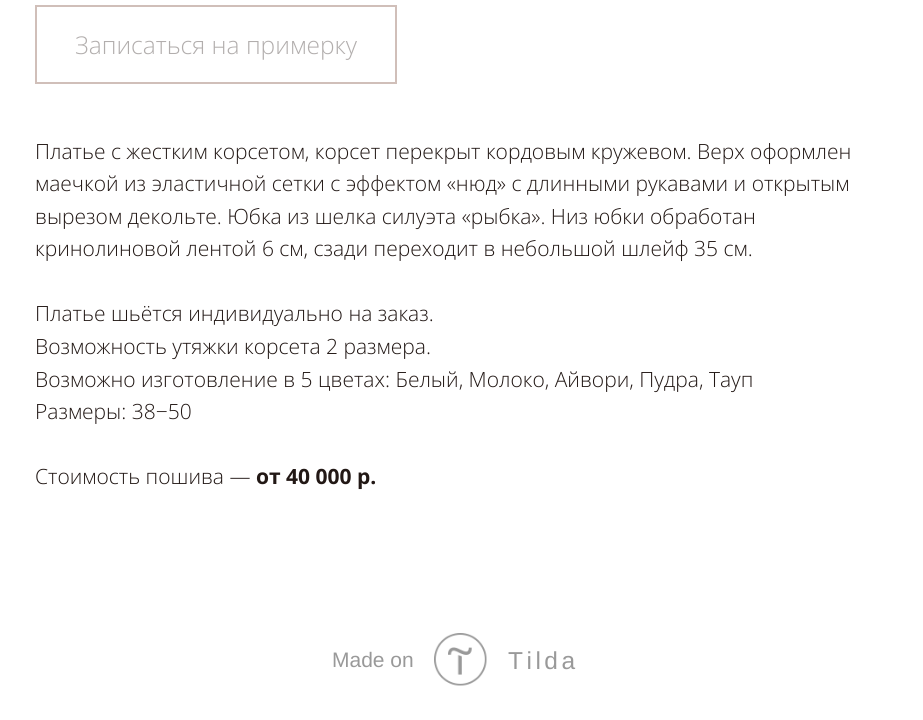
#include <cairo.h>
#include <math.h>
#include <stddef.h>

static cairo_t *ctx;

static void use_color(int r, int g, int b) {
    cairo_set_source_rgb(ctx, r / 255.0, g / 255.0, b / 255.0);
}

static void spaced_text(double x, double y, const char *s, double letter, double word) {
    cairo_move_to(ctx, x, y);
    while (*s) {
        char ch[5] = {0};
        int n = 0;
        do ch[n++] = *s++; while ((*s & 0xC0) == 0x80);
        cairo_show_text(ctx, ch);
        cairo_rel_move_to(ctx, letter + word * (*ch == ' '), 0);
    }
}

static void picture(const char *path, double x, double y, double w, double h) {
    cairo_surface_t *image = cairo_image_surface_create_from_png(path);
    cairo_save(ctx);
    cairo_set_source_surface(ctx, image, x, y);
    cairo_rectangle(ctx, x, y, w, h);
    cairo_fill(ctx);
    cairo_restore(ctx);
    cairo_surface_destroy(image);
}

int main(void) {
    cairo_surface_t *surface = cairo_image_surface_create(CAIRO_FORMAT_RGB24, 923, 720);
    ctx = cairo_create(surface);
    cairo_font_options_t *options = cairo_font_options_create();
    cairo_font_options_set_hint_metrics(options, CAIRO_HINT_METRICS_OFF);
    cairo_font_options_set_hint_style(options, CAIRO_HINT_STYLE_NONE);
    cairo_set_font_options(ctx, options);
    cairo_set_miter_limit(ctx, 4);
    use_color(255, 255, 255);
    cairo_paint(ctx);
    cairo_rectangle(ctx, 36, 6, 360, 77);
    use_color(208, 191, 185);
    cairo_stroke(ctx);
    cairo_select_font_face(ctx, "Open Sans Light", CAIRO_FONT_SLANT_NORMAL, CAIRO_FONT_WEIGHT_NORMAL);
    cairo_set_font_size(ctx, 24.5);
    use_color(178, 174, 173);
    cairo_move_to(ctx, 75, 54);
    cairo_show_text(ctx, "Записаться на примерку");
    cairo_set_font_size(ctx, 21);
    use_color(34, 24, 21);
    cairo_move_to(ctx, 35, 159);
    cairo_show_text(ctx, "Платье с жестким корсетом, корсет перекрыт кордовым кружевом. Верх оформлен");
    cairo_move_to(ctx, 35, 191);
    cairo_show_text(ctx, "маечкой из эластичной сетки с эффектом «нюд» с длинными рукавами и открытым");
    cairo_move_to(ctx, 35, 224);
    cairo_show_text(ctx, "вырезом декольте. Юбка из шелка силуэта «рыбка». Низ юбки обработан");
    cairo_move_to(ctx, 35, 256);
    cairo_show_text(ctx, "кринолиновой лентой 6 см, сзади переходит в небольшой шлейф 35 см.");
    cairo_move_to(ctx, 35, 321);
    cairo_show_text(ctx, "Платье шьётся индивидуально на заказ.");
    cairo_move_to(ctx, 35, 354);
    cairo_show_text(ctx, "Возможность утяжки корсета 2 размера.");
    cairo_move_to(ctx, 35, 387);
    cairo_show_text(ctx, "Возможно изготовление в 5 цветах: Белый, Молоко, Айвори, Пудра, Тауп");
    cairo_move_to(ctx, 35, 419);
    cairo_show_text(ctx, "Размеры: 38−50");
    cairo_move_to(ctx, 35, 484);
    cairo_show_text(ctx, "Стоимость пошива —");
    cairo_select_font_face(ctx, "Open Sans", CAIRO_FONT_SLANT_NORMAL, CAIRO_FONT_WEIGHT_BOLD);
    cairo_move_to(ctx, 256, 484);
    cairo_show_text(ctx, "от 40 000 р.");
    cairo_select_font_face(ctx, "Liberation Sans", CAIRO_FONT_SLANT_NORMAL, CAIRO_FONT_WEIGHT_NORMAL);
    use_color(153, 153, 153);
    cairo_move_to(ctx, 332, 667);
    cairo_show_text(ctx, "Made on");
    picture("img1.png", 434, 633, 53, 53);
    cairo_set_font_size(ctx, 24.5);
    spaced_text(508, 669, "Tilda", 3.5, 0);
    cairo_surface_write_to_png(surface, "result.png");
    cairo_font_options_destroy(options);
    cairo_destroy(ctx);
    cairo_surface_destroy(surface);
    return 0;
}
